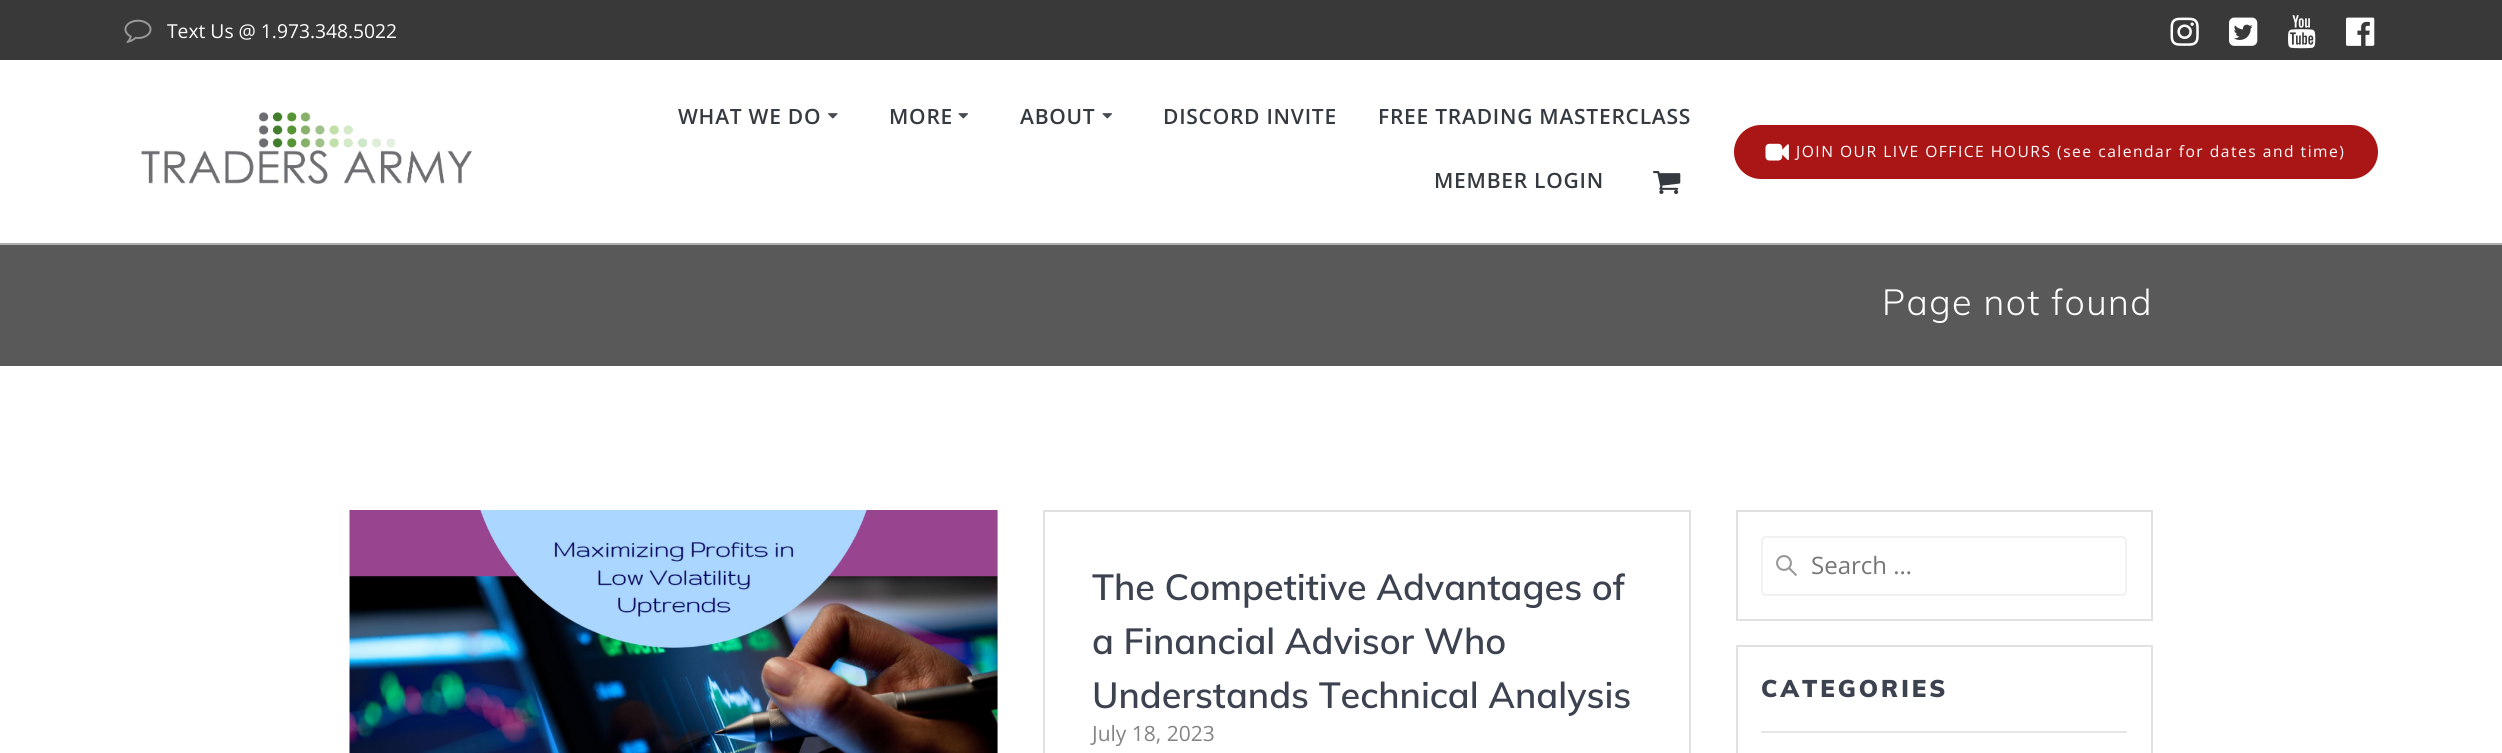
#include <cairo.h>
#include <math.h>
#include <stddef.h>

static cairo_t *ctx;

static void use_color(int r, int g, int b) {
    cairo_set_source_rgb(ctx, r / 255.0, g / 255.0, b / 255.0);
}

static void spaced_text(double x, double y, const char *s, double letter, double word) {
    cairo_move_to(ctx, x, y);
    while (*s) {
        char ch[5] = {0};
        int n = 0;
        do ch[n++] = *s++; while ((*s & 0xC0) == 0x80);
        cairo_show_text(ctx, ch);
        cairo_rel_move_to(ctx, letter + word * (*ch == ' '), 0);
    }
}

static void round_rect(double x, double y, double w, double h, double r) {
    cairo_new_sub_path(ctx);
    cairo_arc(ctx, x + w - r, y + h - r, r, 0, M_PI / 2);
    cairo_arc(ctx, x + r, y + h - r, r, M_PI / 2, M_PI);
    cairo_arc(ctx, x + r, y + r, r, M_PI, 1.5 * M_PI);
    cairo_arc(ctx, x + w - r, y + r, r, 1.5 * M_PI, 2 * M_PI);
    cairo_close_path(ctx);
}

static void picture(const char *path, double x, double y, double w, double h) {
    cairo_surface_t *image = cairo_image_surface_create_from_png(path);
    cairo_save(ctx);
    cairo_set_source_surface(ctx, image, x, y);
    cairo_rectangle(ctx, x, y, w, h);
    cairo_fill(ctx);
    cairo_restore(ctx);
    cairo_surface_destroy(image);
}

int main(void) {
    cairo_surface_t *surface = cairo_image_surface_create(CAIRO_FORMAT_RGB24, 2502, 753);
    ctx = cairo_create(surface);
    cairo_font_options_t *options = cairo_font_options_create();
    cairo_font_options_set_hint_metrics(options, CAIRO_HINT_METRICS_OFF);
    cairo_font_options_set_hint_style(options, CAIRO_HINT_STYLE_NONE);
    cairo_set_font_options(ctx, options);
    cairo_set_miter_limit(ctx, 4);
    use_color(255, 255, 255);
    cairo_paint(ctx);
    use_color(58, 57, 57);
    cairo_rectangle(ctx, 0, 0, 2502, 60);
    cairo_fill(ctx);
    picture("img1.png", 124, 19, 28, 24);
    cairo_select_font_face(ctx, "Open Sans", CAIRO_FONT_SLANT_NORMAL, CAIRO_FONT_WEIGHT_NORMAL);
    cairo_set_font_size(ctx, 19.25);
    use_color(255, 255, 255);
    cairo_move_to(ctx, 167, 38);
    cairo_show_text(ctx, "Text Us @ 1.973.348.5022");
    picture("img2.png", 2170, 17, 29, 29);
    picture("img3.png", 2229, 17, 29, 29);
    picture("img4.png", 2288, 15, 28, 34);
    picture("img5.png", 2346, 17, 29, 29);
    use_color(175, 175, 175);
    cairo_rectangle(ctx, 0, 243, 2502, 2);
    cairo_fill(ctx);
    picture("img6.png", 141, 112, 348, 107);
    cairo_select_font_face(ctx, "Open Sans SemiBold", CAIRO_FONT_SLANT_NORMAL, CAIRO_FONT_WEIGHT_NORMAL);
    cairo_set_font_size(ctx, 21);
    use_color(52, 58, 64);
    spaced_text(678, 124, "WHAT WE DO", 0.75, 0);
    picture("img7.png", 828, 113, 10, 6);
    spaced_text(889, 124, "MORE", 0.75, 0);
    picture("img8.png", 958, 113, 10, 6);
    spaced_text(1020, 124, "ABOUT", 0.75, 0);
    picture("img8.png", 1102, 113, 10, 6);
    spaced_text(1163, 124, "DISCORD INVITE", 0.75, 0);
    spaced_text(1378, 124, "FREE TRADING MASTERCLASS", 0.75, 0);
    spaced_text(1434, 188, "MEMBER LOGIN", 0.75, 0);
    picture("img9.png", 1653, 171, 28, 24);
    use_color(170, 22, 22);
    round_rect(1735.5, 126.5, 641, 51, 25.5);
    cairo_fill_preserve(ctx);
    cairo_set_line_width(ctx, 3);
    cairo_stroke(ctx);
    picture("img10.png", 1765, 143, 24, 18);
    cairo_select_font_face(ctx, "Open Sans", CAIRO_FONT_SLANT_NORMAL, CAIRO_FONT_WEIGHT_NORMAL);
    cairo_set_font_size(ctx, 15.6);
    use_color(255, 255, 255);
    spaced_text(1796, 157, "JOIN OUR LIVE OFFICE HOURS (see calendar for dates and time)", 1.5, 0);
    use_color(89, 89, 90);
    cairo_rectangle(ctx, 0, 245, 2502, 121);
    cairo_fill(ctx);
    cairo_select_font_face(ctx, "Muli Light", CAIRO_FONT_SLANT_NORMAL, CAIRO_FONT_WEIGHT_NORMAL);
    cairo_set_font_size(ctx, 36);
    use_color(255, 255, 255);
    spaced_text(1882, 315, "Page not found", 1.4, 0);
    cairo_rectangle(ctx, 351, 511, 646, 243);
    use_color(224, 225, 225);
    cairo_set_line_width(ctx, 2);
    cairo_stroke(ctx);
    picture("img11.png", 349, 510, 649, 243);
    cairo_rectangle(ctx, 1044, 511, 646, 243);
    cairo_stroke(ctx);
    cairo_select_font_face(ctx, "Muli SemiBold", CAIRO_FONT_SLANT_NORMAL, CAIRO_FONT_WEIGHT_NORMAL);
    use_color(60, 66, 79);
    cairo_move_to(ctx, 1092, 600);
    cairo_show_text(ctx, "The Competitive Advantages of");
    cairo_move_to(ctx, 1092, 654);
    cairo_show_text(ctx, "a Financial Advisor Who");
    cairo_move_to(ctx, 1092, 708);
    cairo_show_text(ctx, "Understands Technical Analysis");
    cairo_select_font_face(ctx, "Open Sans", CAIRO_FONT_SLANT_NORMAL, CAIRO_FONT_WEIGHT_NORMAL);
    cairo_set_font_size(ctx, 21);
    use_color(132, 132, 132);
    cairo_move_to(ctx, 1092, 741);
    cairo_show_text(ctx, "July 18, 2023");
    cairo_rectangle(ctx, 1737, 511, 415, 109);
    use_color(224, 225, 225);
    cairo_stroke(ctx);
    picture("img12.png", 1776, 555, 21, 21);
    round_rect(1762, 537, 364, 58, 4);
    use_color(241, 241, 241);
    cairo_stroke(ctx);
    cairo_set_font_size(ctx, 24);
    use_color(117, 117, 117);
    cairo_move_to(ctx, 1811, 574);
    cairo_show_text(ctx, "Search …");
    cairo_rectangle(ctx, 1737, 646, 415, 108);
    use_color(224, 225, 225);
    cairo_stroke(ctx);
    cairo_select_font_face(ctx, "Muli Black", CAIRO_FONT_SLANT_NORMAL, CAIRO_FONT_WEIGHT_NORMAL);
    use_color(60, 66, 79);
    spaced_text(1761, 697, "CATEGORIES", 3, 0);
    use_color(230, 230, 230);
    cairo_rectangle(ctx, 1761, 731, 366, 2);
    cairo_fill(ctx);
    cairo_surface_write_to_png(surface, "result.png");
    cairo_font_options_destroy(options);
    cairo_destroy(ctx);
    cairo_surface_destroy(surface);
    return 0;
}
